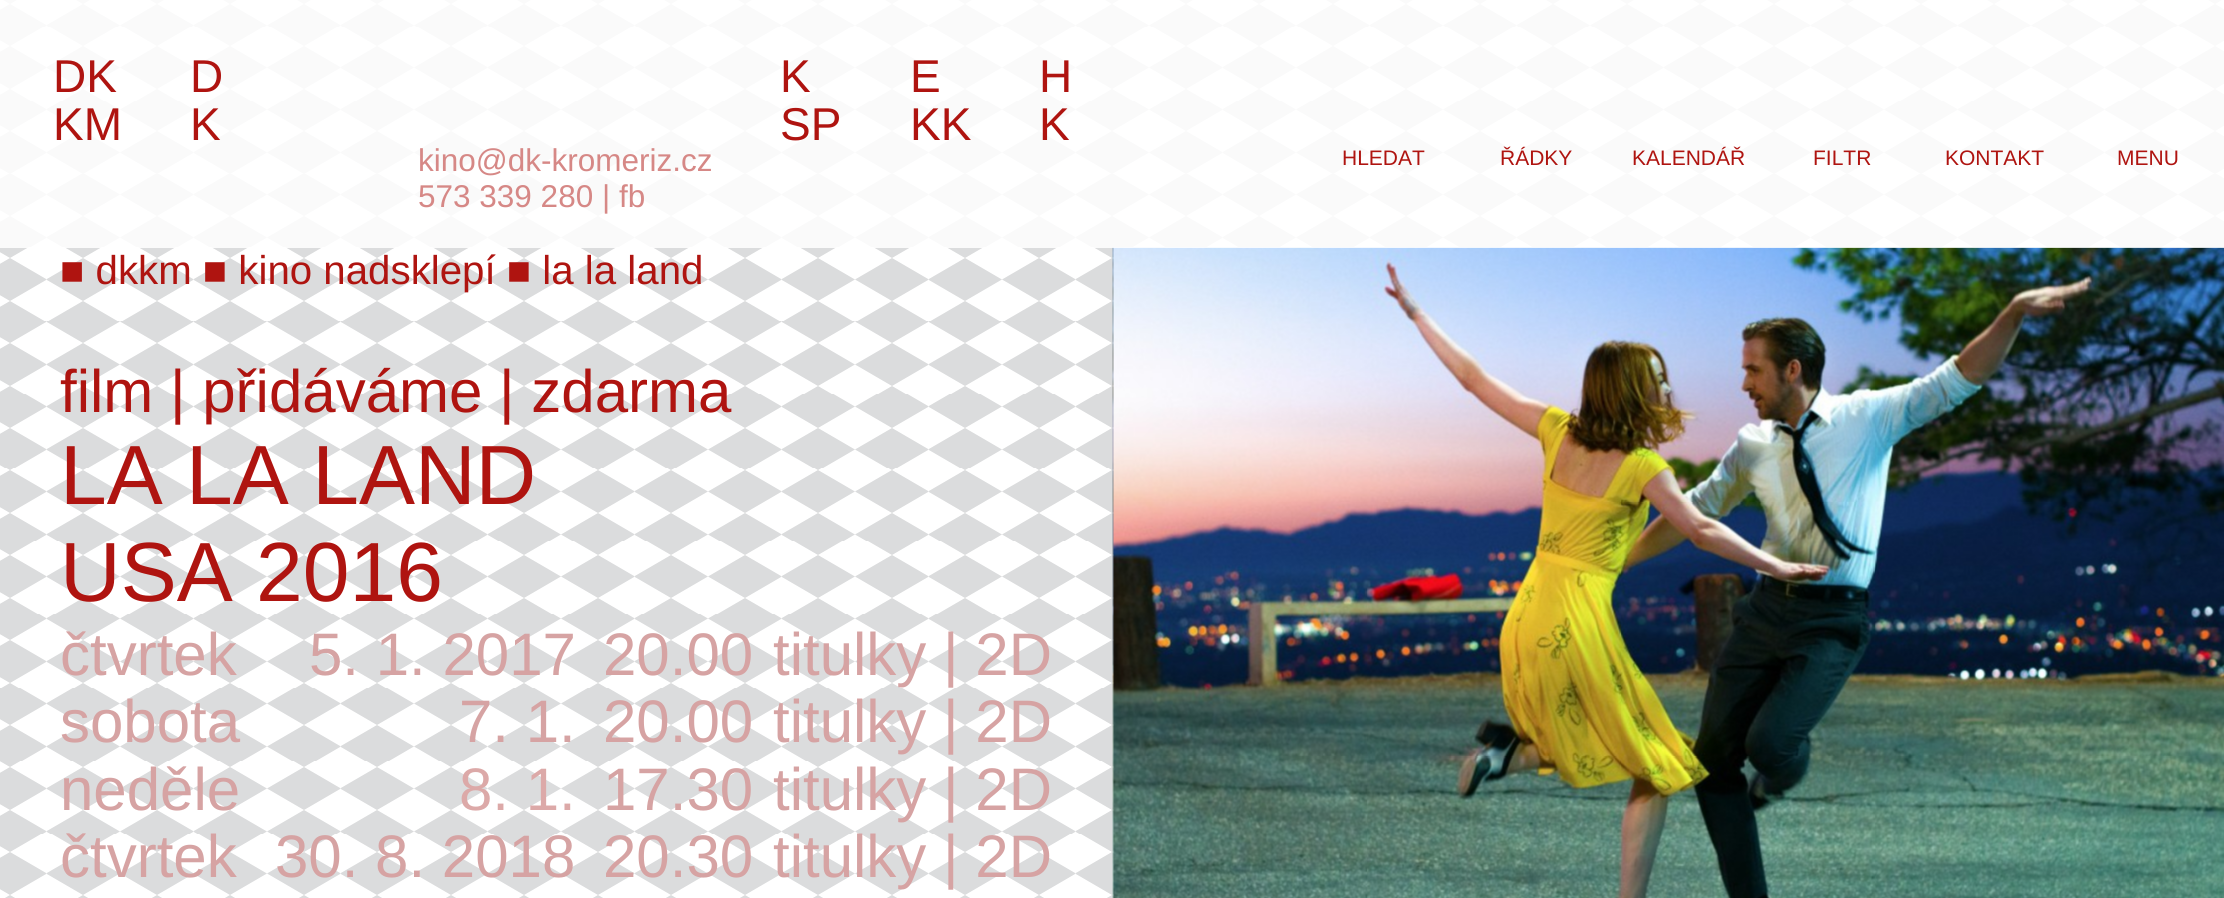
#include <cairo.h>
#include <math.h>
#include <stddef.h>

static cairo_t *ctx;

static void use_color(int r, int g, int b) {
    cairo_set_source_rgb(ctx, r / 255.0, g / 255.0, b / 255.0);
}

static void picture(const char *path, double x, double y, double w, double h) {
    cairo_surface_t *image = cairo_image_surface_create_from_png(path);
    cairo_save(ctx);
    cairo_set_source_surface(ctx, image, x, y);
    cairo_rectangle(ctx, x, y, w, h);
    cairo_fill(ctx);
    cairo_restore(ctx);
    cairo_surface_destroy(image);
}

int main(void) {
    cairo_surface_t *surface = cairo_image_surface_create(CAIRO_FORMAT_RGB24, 2224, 898);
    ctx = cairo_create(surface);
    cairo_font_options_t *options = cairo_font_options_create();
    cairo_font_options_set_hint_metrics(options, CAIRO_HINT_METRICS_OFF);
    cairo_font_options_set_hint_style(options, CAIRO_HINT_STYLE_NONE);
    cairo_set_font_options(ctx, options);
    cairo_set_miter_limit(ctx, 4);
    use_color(255, 255, 255);
    cairo_paint(ctx);
    picture("img1.png", 0, 0, 2224, 898);
    picture("img2.png", 1112, 247, 1112, 651);
    cairo_set_source_rgba(ctx, 1, 1, 1, 0.85);
    cairo_rectangle(ctx, 0, 0, 2224, 248);
    cairo_fill(ctx);
    cairo_select_font_face(ctx, "Liberation Sans", CAIRO_FONT_SLANT_NORMAL, CAIRO_FONT_WEIGHT_NORMAL);
    cairo_set_font_size(ctx, 46);
    use_color(175, 20, 16);
    cairo_move_to(ctx, 53, 92);
    cairo_show_text(ctx, "DK");
    cairo_move_to(ctx, 53, 140);
    cairo_show_text(ctx, "KM");
    cairo_move_to(ctx, 190, 92);
    cairo_show_text(ctx, "D");
    cairo_move_to(ctx, 190, 140);
    cairo_show_text(ctx, "K");
    cairo_move_to(ctx, 780, 92);
    cairo_show_text(ctx, "K");
    cairo_move_to(ctx, 780, 140);
    cairo_show_text(ctx, "SP");
    cairo_move_to(ctx, 910, 92);
    cairo_show_text(ctx, "E");
    cairo_move_to(ctx, 910, 140);
    cairo_show_text(ctx, "KK");
    cairo_move_to(ctx, 1039, 92);
    cairo_show_text(ctx, "H");
    cairo_move_to(ctx, 1039, 140);
    cairo_show_text(ctx, "K");
    cairo_set_font_size(ctx, 31.5);
    use_color(214, 136, 134);
    cairo_move_to(ctx, 418, 171);
    cairo_show_text(ctx, "kino@dk-kromeriz.cz");
    cairo_move_to(ctx, 418, 207);
    cairo_show_text(ctx, "573 339 280");
    cairo_move_to(ctx, 602, 207);
    cairo_show_text(ctx, "|");
    cairo_move_to(ctx, 619, 207);
    cairo_show_text(ctx, "fb");
    cairo_set_font_size(ctx, 21);
    use_color(175, 20, 16);
    cairo_move_to(ctx, 1342, 165);
    cairo_show_text(ctx, "HLEDAT");
    cairo_move_to(ctx, 1500, 165);
    cairo_show_text(ctx, "ŘÁDKY");
    cairo_move_to(ctx, 1632, 165);
    cairo_show_text(ctx, "KALENDÁŘ");
    cairo_move_to(ctx, 1813, 165);
    cairo_show_text(ctx, "FILTR");
    cairo_move_to(ctx, 1945, 165);
    cairo_show_text(ctx, "KONTAKT");
    cairo_move_to(ctx, 2117, 165);
    cairo_show_text(ctx, "MENU");
    cairo_set_font_size(ctx, 40.25);
    cairo_move_to(ctx, 60, 284);
    cairo_show_text(ctx, "■ dkkm ■ kino nadsklepí ■ la la land");
    cairo_set_font_size(ctx, 60);
    cairo_move_to(ctx, 60, 412);
    cairo_show_text(ctx, "film | přidáváme | zdarma");
    cairo_set_font_size(ctx, 84);
    cairo_move_to(ctx, 60, 504);
    cairo_show_text(ctx, "LA LA LAND");
    cairo_move_to(ctx, 60, 601);
    cairo_show_text(ctx, "USA 2016");
    cairo_set_font_size(ctx, 60);
    use_color(214, 163, 163);
    cairo_move_to(ctx, 60, 675);
    cairo_show_text(ctx, "čtvrtek");
    cairo_move_to(ctx, 309, 675);
    cairo_show_text(ctx, "5. 1. 2017");
    cairo_move_to(ctx, 603, 675);
    cairo_show_text(ctx, "20.00");
    cairo_move_to(ctx, 773, 675);
    cairo_show_text(ctx, "titulky | 2D");
    cairo_move_to(ctx, 60, 742);
    cairo_show_text(ctx, "sobota");
    cairo_move_to(ctx, 459, 742);
    cairo_show_text(ctx, "7. 1.");
    cairo_move_to(ctx, 603, 742);
    cairo_show_text(ctx, "20.00");
    cairo_move_to(ctx, 773, 742);
    cairo_show_text(ctx, "titulky | 2D");
    cairo_move_to(ctx, 60, 810);
    cairo_show_text(ctx, "neděle");
    use_color(220, 169, 168);
    cairo_move_to(ctx, 459, 810);
    cairo_show_text(ctx, "8. 1.");
    use_color(214, 163, 163);
    cairo_move_to(ctx, 603, 810);
    cairo_show_text(ctx, "17.30");
    cairo_move_to(ctx, 773, 810);
    cairo_show_text(ctx, "titulky | 2D");
    cairo_move_to(ctx, 60, 877);
    cairo_show_text(ctx, "čtvrtek");
    cairo_move_to(ctx, 275, 877);
    cairo_show_text(ctx, "30. 8. 2018");
    cairo_move_to(ctx, 603, 877);
    cairo_show_text(ctx, "20.30");
    cairo_move_to(ctx, 773, 877);
    cairo_show_text(ctx, "titulky | 2D");
    cairo_surface_write_to_png(surface, "result.png");
    cairo_font_options_destroy(options);
    cairo_destroy(ctx);
    cairo_surface_destroy(surface);
    return 0;
}
